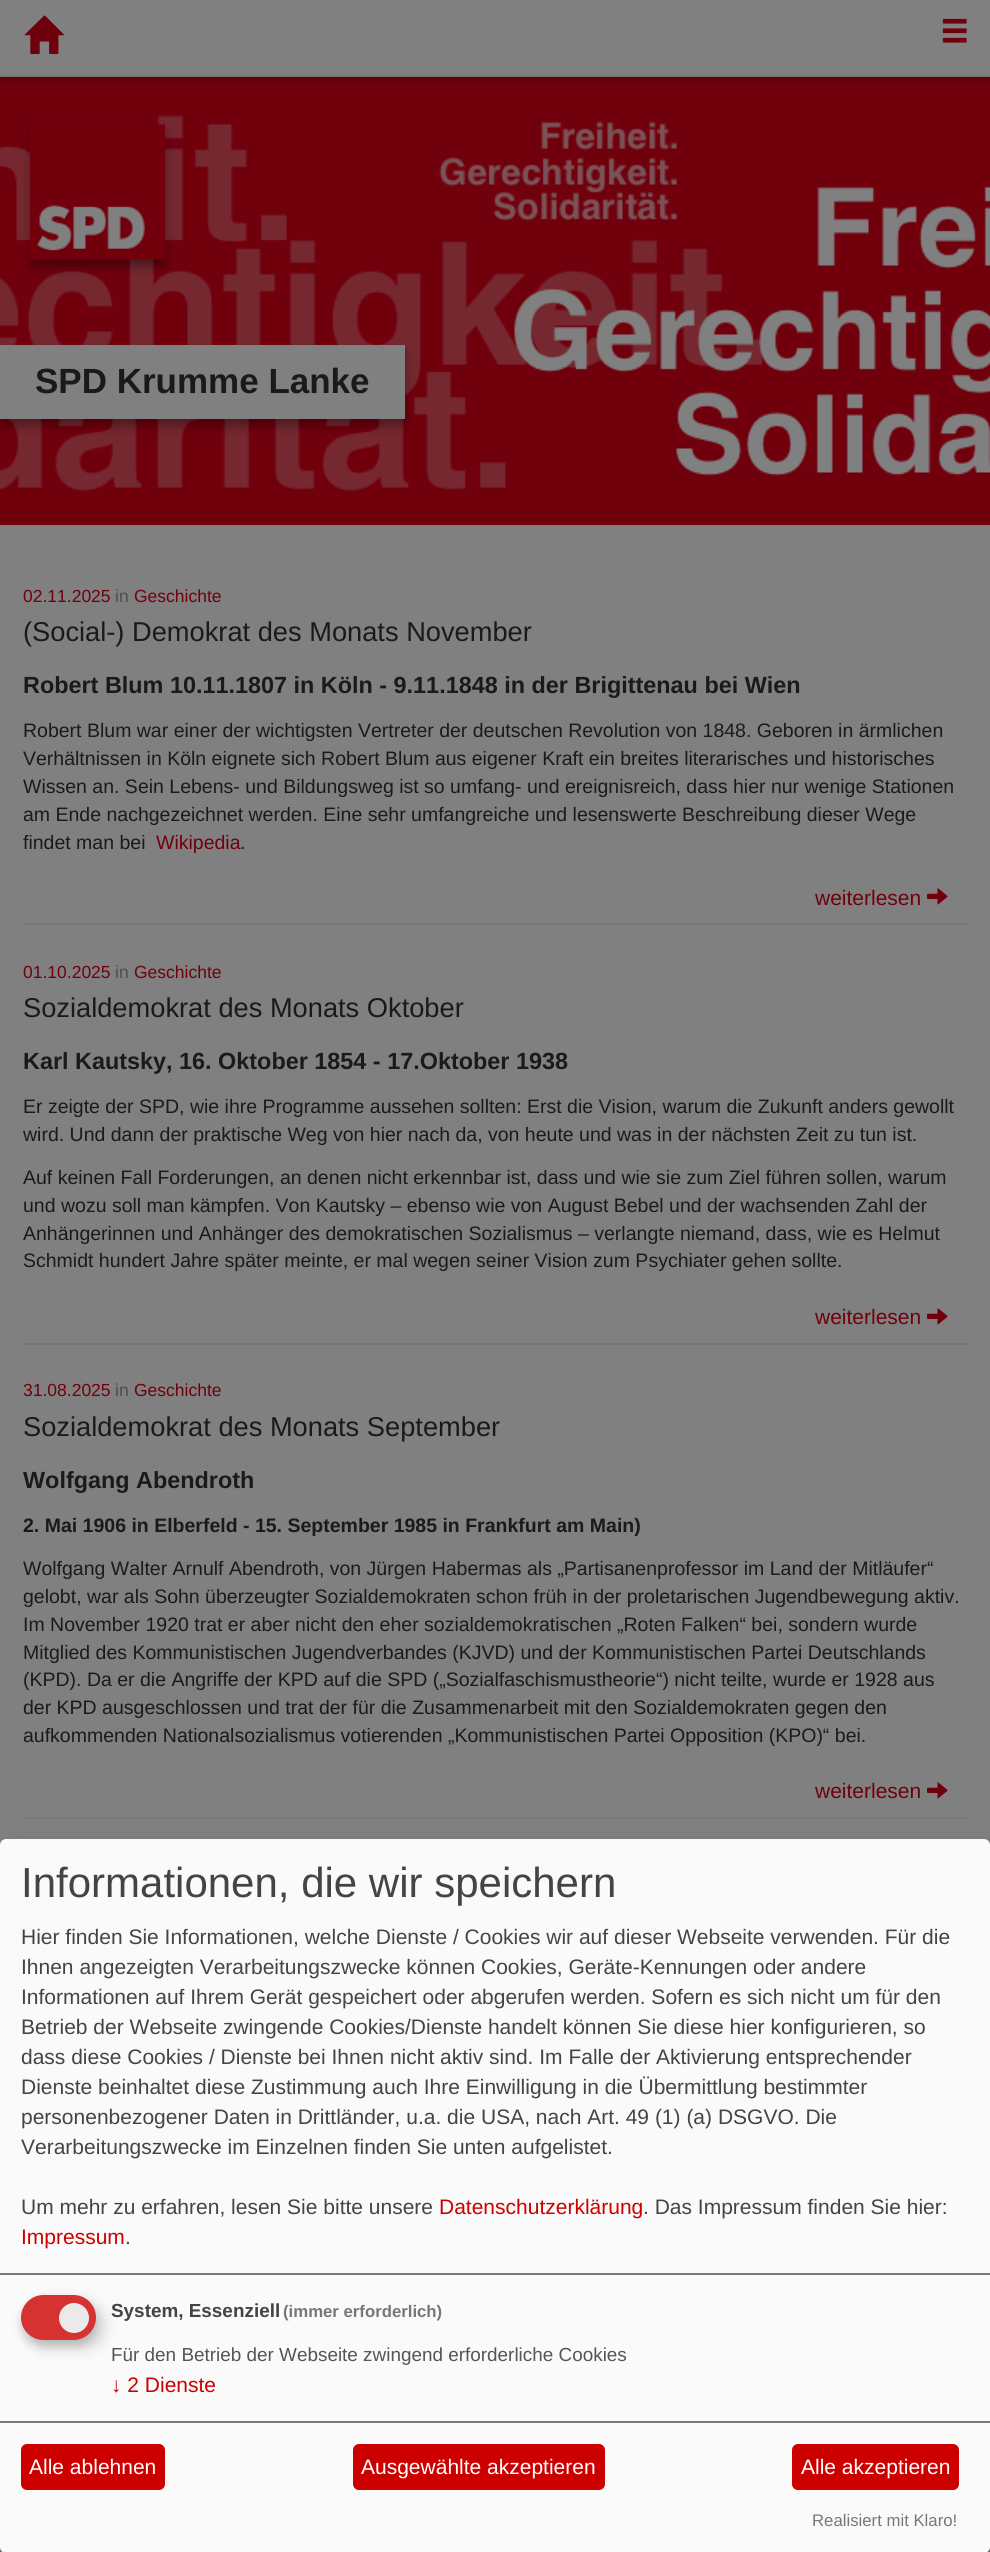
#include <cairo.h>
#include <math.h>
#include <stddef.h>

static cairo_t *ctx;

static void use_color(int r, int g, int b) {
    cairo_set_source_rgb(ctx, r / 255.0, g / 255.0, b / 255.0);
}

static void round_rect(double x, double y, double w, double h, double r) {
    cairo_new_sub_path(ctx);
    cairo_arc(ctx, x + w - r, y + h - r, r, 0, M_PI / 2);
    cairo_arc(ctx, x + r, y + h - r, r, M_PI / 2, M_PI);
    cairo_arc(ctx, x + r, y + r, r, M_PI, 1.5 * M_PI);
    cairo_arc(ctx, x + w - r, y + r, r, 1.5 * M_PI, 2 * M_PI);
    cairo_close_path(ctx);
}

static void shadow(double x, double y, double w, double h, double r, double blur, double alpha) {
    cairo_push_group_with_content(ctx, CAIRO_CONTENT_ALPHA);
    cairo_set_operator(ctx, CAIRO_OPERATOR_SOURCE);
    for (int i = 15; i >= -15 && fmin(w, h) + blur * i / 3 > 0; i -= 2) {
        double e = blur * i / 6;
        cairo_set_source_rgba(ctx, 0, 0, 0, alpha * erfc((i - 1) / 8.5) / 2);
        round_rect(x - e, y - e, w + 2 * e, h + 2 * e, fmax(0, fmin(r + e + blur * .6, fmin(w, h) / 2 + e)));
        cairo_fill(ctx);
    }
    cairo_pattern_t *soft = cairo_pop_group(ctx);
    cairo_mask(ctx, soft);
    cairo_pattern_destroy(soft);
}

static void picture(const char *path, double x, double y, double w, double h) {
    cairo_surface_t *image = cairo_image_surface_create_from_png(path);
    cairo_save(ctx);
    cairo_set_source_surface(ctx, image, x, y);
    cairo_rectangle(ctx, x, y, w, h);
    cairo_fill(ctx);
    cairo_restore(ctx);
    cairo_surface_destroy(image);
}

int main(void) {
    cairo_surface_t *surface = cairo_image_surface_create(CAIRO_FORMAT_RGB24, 990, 2552);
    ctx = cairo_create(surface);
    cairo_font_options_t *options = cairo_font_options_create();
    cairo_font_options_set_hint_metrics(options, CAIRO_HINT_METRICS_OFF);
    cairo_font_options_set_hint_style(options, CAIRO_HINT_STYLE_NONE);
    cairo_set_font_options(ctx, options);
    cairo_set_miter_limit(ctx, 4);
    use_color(128, 128, 128);
    cairo_paint(ctx);
    use_color(113, 0, 13);
    cairo_rectangle(ctx, 0, 77, 990, 448);
    cairo_fill(ctx);
    use_color(0, 0, 0);
    shadow(0, 3, 990, 77, 0, 4.5, 0.2);
    use_color(128, 128, 128);
    cairo_rectangle(ctx, 0, 0, 990, 75);
    cairo_fill(ctx);
    use_color(119, 119, 119);
    cairo_rectangle(ctx, 0, 75, 990, 2);
    cairo_fill(ctx);
    picture("img1.png", 24, 15, 41, 39);
    picture("img2.png", 942, 18, 25, 25);
    picture("img3.png", 0, 115, 990, 376);
    use_color(0, 0, 0);
    shadow(32, 134, 132, 132, 0, 6, 0.4);
    picture("img4.png", 30, 124, 135, 136);
    shadow(2, 354, 402, 71, 0, 6, 0.4);
    use_color(128, 128, 128);
    cairo_rectangle(ctx, 0, 345, 405, 74);
    cairo_fill(ctx);
    cairo_select_font_face(ctx, "Liberation Sans", CAIRO_FONT_SLANT_NORMAL, CAIRO_FONT_WEIGHT_BOLD);
    cairo_set_font_size(ctx, 35);
    use_color(26, 26, 26);
    cairo_move_to(ctx, 35, 393);
    cairo_show_text(ctx, "SPD Krumme Lanke");
    cairo_select_font_face(ctx, "Liberation Sans", CAIRO_FONT_SLANT_NORMAL, CAIRO_FONT_WEIGHT_NORMAL);
    cairo_set_font_size(ctx, 17.5);
    use_color(113, 0, 13);
    cairo_move_to(ctx, 23, 602);
    cairo_show_text(ctx, "02.11.2025");
    use_color(77, 77, 77);
    cairo_move_to(ctx, 115, 602);
    cairo_show_text(ctx, "in");
    use_color(113, 0, 13);
    cairo_move_to(ctx, 134, 602);
    cairo_show_text(ctx, "Geschichte");
    cairo_set_font_size(ctx, 27.25);
    use_color(26, 26, 26);
    cairo_move_to(ctx, 23, 641);
    cairo_show_text(ctx, "(Social-) Demokrat des Monats November");
    cairo_select_font_face(ctx, "Liberation Sans", CAIRO_FONT_SLANT_NORMAL, CAIRO_FONT_WEIGHT_BOLD);
    cairo_set_font_size(ctx, 23.4);
    cairo_move_to(ctx, 23, 693);
    cairo_show_text(ctx, "Robert Blum 10.11.1807 in Köln - 9.11.1848 in der Brigittenau bei Wien");
    cairo_select_font_face(ctx, "Liberation Sans", CAIRO_FONT_SLANT_NORMAL, CAIRO_FONT_WEIGHT_NORMAL);
    cairo_set_font_size(ctx, 19.5);
    cairo_move_to(ctx, 23, 737);
    cairo_show_text(ctx, "Robert Blum war einer der wichtigsten Vertreter der deutschen Revolution von 1848. Geboren in ärmlichen");
    cairo_move_to(ctx, 23, 765);
    cairo_show_text(ctx, "Verhältnissen in Köln eignete sich Robert Blum aus eigener Kraft ein breites literarisches und historisches");
    cairo_move_to(ctx, 23, 793);
    cairo_show_text(ctx, "Wissen an. Sein Lebens- und Bildungsweg ist so umfang- und ereignisreich, dass hier nur wenige Stationen");
    cairo_move_to(ctx, 23, 821);
    cairo_show_text(ctx, "am Ende nachgezeichnet werden. Eine sehr umfangreiche und lesenswerte Beschreibung dieser Wege");
    cairo_move_to(ctx, 23, 849);
    cairo_show_text(ctx, "findet man bei");
    use_color(113, 0, 13);
    cairo_move_to(ctx, 156, 849);
    cairo_show_text(ctx, "Wikipedia");
    use_color(26, 26, 26);
    cairo_move_to(ctx, 240, 849);
    cairo_show_text(ctx, ".");
    use_color(119, 119, 119);
    cairo_rectangle(ctx, 23, 923, 945, 2);
    cairo_fill(ctx);
    cairo_set_font_size(ctx, 21);
    use_color(113, 0, 13);
    cairo_move_to(ctx, 815, 905);
    cairo_show_text(ctx, "weiterlesen");
    picture("img5.png", 927, 888, 21, 17);
    cairo_set_font_size(ctx, 17.5);
    cairo_move_to(ctx, 23, 978);
    cairo_show_text(ctx, "01.10.2025");
    use_color(77, 77, 77);
    cairo_move_to(ctx, 115, 978);
    cairo_show_text(ctx, "in");
    use_color(113, 0, 13);
    cairo_move_to(ctx, 134, 978);
    cairo_show_text(ctx, "Geschichte");
    cairo_set_font_size(ctx, 27.25);
    use_color(26, 26, 26);
    cairo_move_to(ctx, 23, 1017);
    cairo_show_text(ctx, "Sozialdemokrat des Monats Oktober");
    cairo_select_font_face(ctx, "Liberation Sans", CAIRO_FONT_SLANT_NORMAL, CAIRO_FONT_WEIGHT_BOLD);
    cairo_set_font_size(ctx, 23.4);
    cairo_move_to(ctx, 23, 1069);
    cairo_show_text(ctx, "Karl Kautsky, 16. Oktober 1854 - 17.Oktober 1938");
    cairo_select_font_face(ctx, "Liberation Sans", CAIRO_FONT_SLANT_NORMAL, CAIRO_FONT_WEIGHT_NORMAL);
    cairo_set_font_size(ctx, 19.5);
    cairo_move_to(ctx, 23, 1113);
    cairo_show_text(ctx, "Er zeigte der SPD, wie ihre Programme aussehen sollten: Erst die Vision, warum die Zukunft anders gewollt");
    cairo_move_to(ctx, 23, 1141);
    cairo_show_text(ctx, "wird. Und dann der praktische Weg von hier nach da, von heute und was in der nächsten Zeit zu tun ist.");
    cairo_move_to(ctx, 23, 1184);
    cairo_show_text(ctx, "Auf keinen Fall Forderungen, an denen nicht erkennbar ist, dass und wie sie zum Ziel führen sollen, warum");
    cairo_move_to(ctx, 23, 1212);
    cairo_show_text(ctx, "und wozu soll man kämpfen. Von Kautsky – ebenso wie von August Bebel und der wachsenden Zahl der");
    cairo_move_to(ctx, 23, 1240);
    cairo_show_text(ctx, "Anhängerinnen und Anhänger des demokratischen Sozialismus – verlangte niemand, dass, wie es Helmut");
    cairo_move_to(ctx, 23, 1267);
    cairo_show_text(ctx, "Schmidt hundert Jahre später meinte, er mal wegen seiner Vision zum Psychiater gehen sollte.");
    use_color(119, 119, 119);
    cairo_rectangle(ctx, 23, 1343, 945, 2);
    cairo_fill(ctx);
    cairo_set_font_size(ctx, 21);
    use_color(113, 0, 13);
    cairo_move_to(ctx, 815, 1324);
    cairo_show_text(ctx, "weiterlesen");
    picture("img5.png", 927, 1308, 21, 17);
    cairo_set_font_size(ctx, 17.5);
    cairo_move_to(ctx, 23, 1396);
    cairo_show_text(ctx, "31.08.2025");
    use_color(77, 77, 77);
    cairo_move_to(ctx, 115, 1396);
    cairo_show_text(ctx, "in");
    use_color(113, 0, 13);
    cairo_move_to(ctx, 134, 1396);
    cairo_show_text(ctx, "Geschichte");
    cairo_set_font_size(ctx, 27.25);
    use_color(26, 26, 26);
    cairo_move_to(ctx, 23, 1436);
    cairo_show_text(ctx, "Sozialdemokrat des Monats September");
    cairo_select_font_face(ctx, "Liberation Sans", CAIRO_FONT_SLANT_NORMAL, CAIRO_FONT_WEIGHT_BOLD);
    cairo_set_font_size(ctx, 23.4);
    cairo_move_to(ctx, 23, 1488);
    cairo_show_text(ctx, "Wolfgang Abendroth");
    cairo_set_font_size(ctx, 19.5);
    cairo_move_to(ctx, 23, 1532);
    cairo_show_text(ctx, "2. Mai 1906 in Elberfeld - 15. September 1985 in Frankfurt am Main)");
    cairo_select_font_face(ctx, "Liberation Sans", CAIRO_FONT_SLANT_NORMAL, CAIRO_FONT_WEIGHT_NORMAL);
    cairo_move_to(ctx, 23, 1575);
    cairo_show_text(ctx, "Wolfgang Walter Arnulf Abendroth, von Jürgen Habermas als „Partisanenprofessor im Land der Mitläufer“");
    cairo_move_to(ctx, 23, 1603);
    cairo_show_text(ctx, "gelobt, war als Sohn überzeugter Sozialdemokraten schon früh in der proletarischen Jugendbewegung aktiv.");
    cairo_move_to(ctx, 23, 1631);
    cairo_show_text(ctx, "Im November 1920 trat er aber nicht den eher sozialdemokratischen „Roten Falken“ bei, sondern wurde");
    cairo_move_to(ctx, 23, 1659);
    cairo_show_text(ctx, "Mitglied des Kommunistischen Jugendverbandes (KJVD) und der Kommunistischen Partei Deutschlands");
    cairo_move_to(ctx, 23, 1686);
    cairo_show_text(ctx, "(KPD). Da er die Angriffe der KPD auf die SPD („Sozialfaschismustheorie“) nicht teilte, wurde er 1928 aus");
    cairo_move_to(ctx, 23, 1714);
    cairo_show_text(ctx, "der KPD ausgeschlossen und trat der für die Zusammenarbeit mit den Sozialdemokraten gegen den");
    cairo_move_to(ctx, 23, 1742);
    cairo_show_text(ctx, "aufkommenden Nationalsozialismus votierenden „Kommunistischen Partei Opposition (KPO)“ bei.");
    use_color(119, 119, 119);
    cairo_rectangle(ctx, 23, 1817, 945, 2);
    cairo_fill(ctx);
    cairo_set_font_size(ctx, 21);
    use_color(113, 0, 13);
    cairo_move_to(ctx, 815, 1798);
    cairo_show_text(ctx, "weiterlesen");
    picture("img5.png", 927, 1782, 21, 17);
    use_color(0, 0, 0);
    shadow(8, 1847, 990, 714, 6, 7.5, 0.19);
    shadow(0, 1845, 990, 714, 6, 4.5, 0.2);
    use_color(250, 250, 250);
    round_rect(0, 1839, 990, 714, 6);
    cairo_fill(ctx);
    use_color(119, 119, 119);
    cairo_rectangle(ctx, 0, 2273, 990, 2);
    cairo_fill(ctx);
    cairo_set_font_size(ctx, 42);
    use_color(68, 68, 68);
    cairo_move_to(ctx, 21, 1897);
    cairo_show_text(ctx, "Informationen, die wir speichern");
    cairo_set_font_size(ctx, 21);
    cairo_move_to(ctx, 21, 1944);
    cairo_show_text(ctx, "Hier finden Sie Informationen, welche Dienste / Cookies wir auf dieser Webseite verwenden. Für die");
    cairo_move_to(ctx, 21, 1974);
    cairo_show_text(ctx, "Ihnen angezeigten Verarbeitungszwecke können Cookies, Geräte-Kennungen oder andere");
    cairo_move_to(ctx, 21, 2004);
    cairo_show_text(ctx, "Informationen auf Ihrem Gerät gespeichert oder abgerufen werden. Sofern es sich nicht um für den");
    cairo_move_to(ctx, 21, 2034);
    cairo_show_text(ctx, "Betrieb der Webseite zwingende Cookies/Dienste handelt können Sie diese hier konfigurieren, so");
    cairo_move_to(ctx, 21, 2064);
    cairo_show_text(ctx, "dass diese Cookies / Dienste bei Ihnen nicht aktiv sind. Im Falle der Aktivierung entsprechender");
    cairo_move_to(ctx, 21, 2094);
    cairo_show_text(ctx, "Dienste beinhaltet diese Zustimmung auch Ihre Einwilligung in die Übermittlung bestimmter");
    cairo_move_to(ctx, 21, 2124);
    cairo_show_text(ctx, "personenbezogener Daten in Drittländer, u.a. die USA, nach Art. 49 (1) (a) DSGVO. Die");
    cairo_move_to(ctx, 21, 2154);
    cairo_show_text(ctx, "Verarbeitungszwecke im Einzelnen finden Sie unten aufgelistet.");
    cairo_move_to(ctx, 21, 2214);
    cairo_show_text(ctx, "Um mehr zu erfahren, lesen Sie bitte unsere");
    use_color(205, 0, 0);
    cairo_move_to(ctx, 439, 2214);
    cairo_show_text(ctx, "Datenschutzerklärung");
    use_color(68, 68, 68);
    cairo_move_to(ctx, 643, 2214);
    cairo_show_text(ctx, ". Das Impressum finden Sie hier:");
    use_color(205, 0, 0);
    cairo_move_to(ctx, 21, 2244);
    cairo_show_text(ctx, "Impressum");
    use_color(68, 68, 68);
    cairo_move_to(ctx, 125, 2244);
    cairo_show_text(ctx, ".");
    use_color(0, 0, 0);
    shadow(29, 2303, 75, 45, 22.5, 7.5, 0.15);
    use_color(50, 50, 50);
    shadow(21, 2301, 75, 45, 22.5, 4.5, 0.2);
    use_color(214, 50, 50);
    round_rect(21, 2295, 75, 45, 22.5);
    cairo_fill(ctx);
    use_color(234, 234, 234);
    cairo_arc(ctx, 74, 2318, 15, 0, 2 * M_PI);
    cairo_fill(ctx);
    cairo_select_font_face(ctx, "Liberation Sans", CAIRO_FONT_SLANT_NORMAL, CAIRO_FONT_WEIGHT_BOLD);
    cairo_set_font_size(ctx, 18.9);
    use_color(68, 68, 68);
    cairo_move_to(ctx, 111, 2317);
    cairo_show_text(ctx, "System, Essenziell");
    cairo_set_font_size(ctx, 16.75);
    use_color(119, 119, 119);
    cairo_move_to(ctx, 283, 2317);
    cairo_show_text(ctx, "(immer erforderlich)");
    cairo_select_font_face(ctx, "Liberation Sans", CAIRO_FONT_SLANT_NORMAL, CAIRO_FONT_WEIGHT_NORMAL);
    cairo_set_font_size(ctx, 18.9);
    use_color(85, 85, 85);
    cairo_move_to(ctx, 111, 2361);
    cairo_show_text(ctx, "Für den Betrieb der Webseite zwingend erforderliche Cookies");
    cairo_set_font_size(ctx, 21);
    use_color(205, 0, 0);
    cairo_move_to(ctx, 111, 2392);
    cairo_show_text(ctx, "↓ 2 Dienste");
    use_color(119, 119, 119);
    cairo_rectangle(ctx, 0, 2421, 990, 2);
    cairo_fill(ctx);
    use_color(205, 0, 0);
    round_rect(21, 2444, 144, 46, 6);
    cairo_fill(ctx);
    use_color(255, 255, 255);
    cairo_move_to(ctx, 29, 2474);
    cairo_show_text(ctx, "Alle ablehnen");
    use_color(205, 0, 0);
    round_rect(353, 2444, 252, 46, 6);
    cairo_fill(ctx);
    use_color(255, 255, 255);
    cairo_move_to(ctx, 361, 2474);
    cairo_show_text(ctx, "Ausgewählte akzeptieren");
    use_color(205, 0, 0);
    round_rect(792, 2444, 167, 46, 6);
    cairo_fill(ctx);
    use_color(255, 255, 255);
    cairo_move_to(ctx, 801, 2474);
    cairo_show_text(ctx, "Alle akzeptieren");
    cairo_set_font_size(ctx, 16.75);
    use_color(119, 119, 119);
    cairo_move_to(ctx, 812, 2526);
    cairo_show_text(ctx, "Realisiert mit Klaro!");
    cairo_surface_write_to_png(surface, "result.png");
    cairo_font_options_destroy(options);
    cairo_destroy(ctx);
    cairo_surface_destroy(surface);
    return 0;
}
